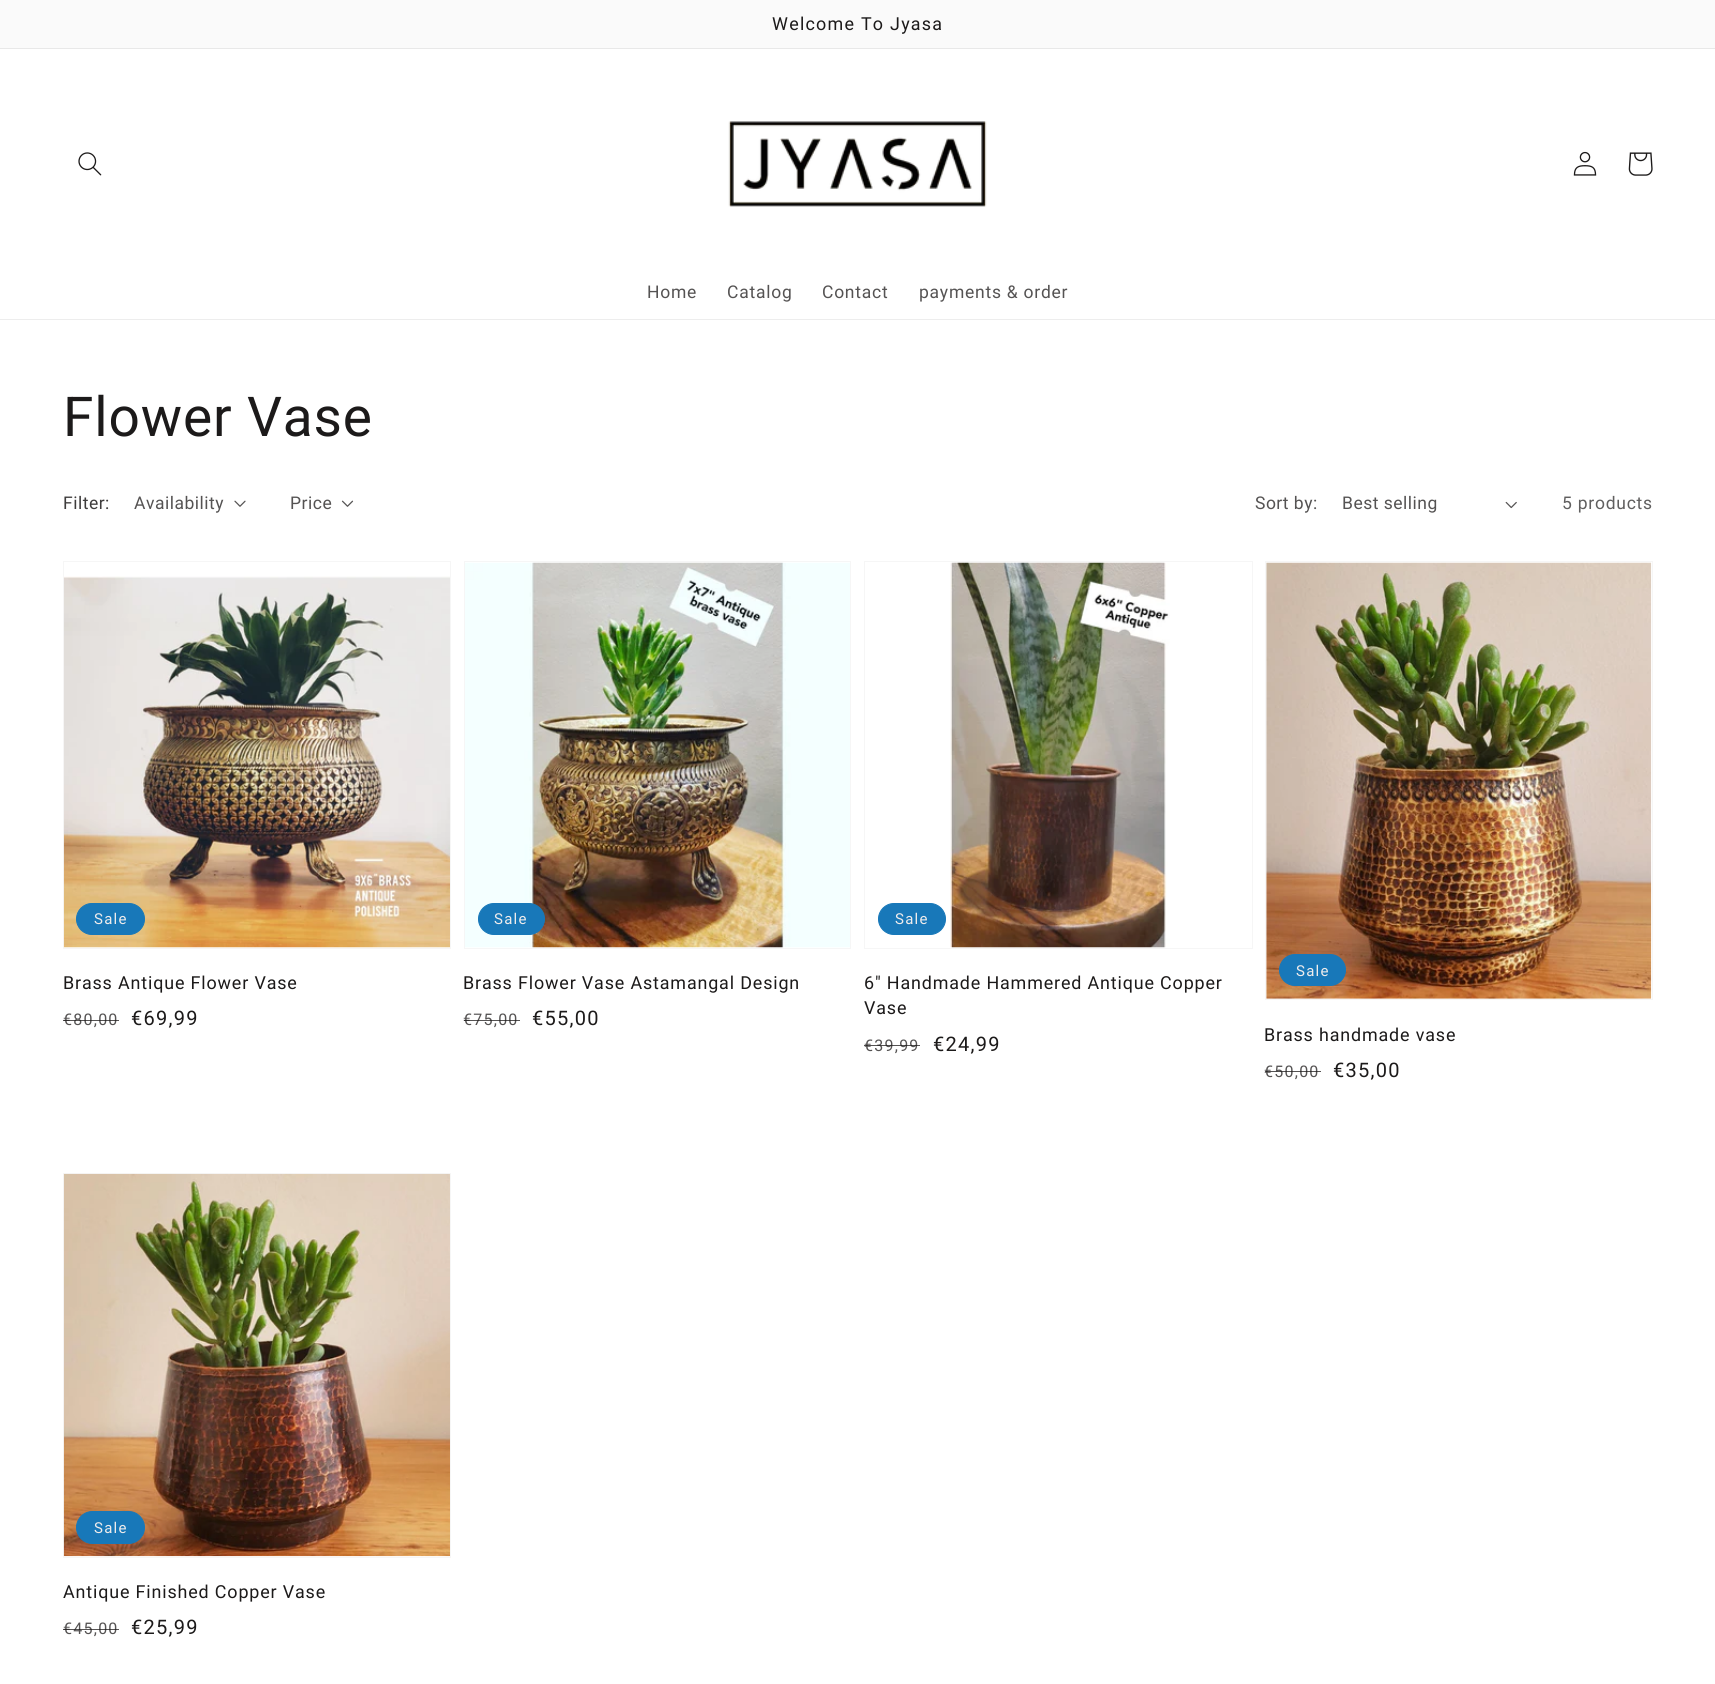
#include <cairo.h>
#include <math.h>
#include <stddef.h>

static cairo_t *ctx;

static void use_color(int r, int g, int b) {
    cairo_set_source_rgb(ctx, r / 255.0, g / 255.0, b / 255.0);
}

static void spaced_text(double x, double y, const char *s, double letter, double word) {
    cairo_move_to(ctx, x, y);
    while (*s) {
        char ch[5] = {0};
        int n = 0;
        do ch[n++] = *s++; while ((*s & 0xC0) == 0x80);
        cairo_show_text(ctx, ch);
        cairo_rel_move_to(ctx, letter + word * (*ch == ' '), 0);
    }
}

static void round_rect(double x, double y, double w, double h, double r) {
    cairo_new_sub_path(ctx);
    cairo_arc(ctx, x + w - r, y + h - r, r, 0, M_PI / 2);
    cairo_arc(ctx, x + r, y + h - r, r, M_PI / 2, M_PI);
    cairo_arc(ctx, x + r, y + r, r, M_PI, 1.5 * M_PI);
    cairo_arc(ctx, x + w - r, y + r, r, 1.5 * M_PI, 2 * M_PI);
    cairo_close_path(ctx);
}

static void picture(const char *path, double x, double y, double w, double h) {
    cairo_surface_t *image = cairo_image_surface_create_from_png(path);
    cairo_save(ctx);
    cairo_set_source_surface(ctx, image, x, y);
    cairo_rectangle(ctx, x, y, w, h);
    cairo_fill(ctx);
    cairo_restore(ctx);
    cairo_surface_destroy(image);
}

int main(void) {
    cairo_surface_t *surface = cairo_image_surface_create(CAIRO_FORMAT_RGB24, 1715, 1684);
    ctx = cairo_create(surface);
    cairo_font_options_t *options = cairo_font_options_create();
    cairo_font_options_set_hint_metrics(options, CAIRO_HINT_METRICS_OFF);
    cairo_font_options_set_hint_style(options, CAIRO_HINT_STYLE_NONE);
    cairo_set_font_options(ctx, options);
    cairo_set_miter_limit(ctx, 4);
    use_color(255, 255, 255);
    cairo_paint(ctx);
    use_color(250, 250, 250);
    cairo_rectangle(ctx, 0, 0, 1715, 48);
    cairo_fill(ctx);
    use_color(232, 232, 232);
    cairo_rectangle(ctx, 0, 48, 1715, 1);
    cairo_fill(ctx);
    cairo_select_font_face(ctx, "Roboto", CAIRO_FONT_SLANT_NORMAL, CAIRO_FONT_WEIGHT_NORMAL);
    cairo_set_font_size(ctx, 17.9);
    use_color(28, 26, 26);
    spaced_text(772, 30, "Welcome To Jyasa", 1.25, 0);
    use_color(237, 237, 237);
    cairo_rectangle(ctx, 0, 319, 1715, 1);
    cairo_fill(ctx);
    picture("img1.png", 78, 152, 24, 24);
    picture("img2.png", 728, 121, 259, 86);
    picture("img3.png", 1573, 151, 24, 25);
    picture("img4.png", 1628, 152, 25, 24);
    cairo_set_font_size(ctx, 17.5);
    use_color(85, 83, 83);
    spaced_text(647, 298, "Home", 0.75, 0);
    spaced_text(727, 298, "Catalog", 0.75, 0);
    spaced_text(822, 298, "Contact", 0.75, 0);
    spaced_text(919, 298, "payments & order", 0.75, 0);
    cairo_set_font_size(ctx, 55);
    use_color(28, 26, 26);
    spaced_text(63, 436, "Flower Vase", 0.85, 0);
    cairo_set_font_size(ctx, 17.5);
    use_color(62, 60, 60);
    spaced_text(63, 509, "Filter:", 0.5, 0);
    use_color(85, 83, 83);
    spaced_text(134, 509, "Availability", 0.5, 0);
    picture("img5.png", 234, 500, 12, 7);
    spaced_text(290, 509, "Price", 0.5, 0);
    picture("img6.png", 341, 500, 13, 7);
    spaced_text(1255, 509, "Sort by:", 0.5, 0);
    spaced_text(1342, 509, "Best selling", 0.5, 0);
    picture("img7.png", 1505, 501, 12, 8);
    use_color(96, 95, 95);
    spaced_text(1562, 509, "5 products", 0.75, 0);
    cairo_rectangle(ctx, 63.5, 561.5, 387, 387);
    use_color(246, 246, 246);
    cairo_set_line_width(ctx, 1);
    cairo_stroke(ctx);
    picture("img8.png", 63, 576, 387, 372);
    use_color(24, 120, 185);
    round_rect(76.5, 903.5, 68, 31, 15.5);
    cairo_fill_preserve(ctx);
    cairo_stroke(ctx);
    cairo_set_font_size(ctx, 15);
    use_color(239, 236, 236);
    spaced_text(94, 924, "Sale", 1.25, 0);
    cairo_set_font_size(ctx, 17.9);
    use_color(28, 26, 26);
    spaced_text(63, 989, "Brass Antique Flower Vase", 0.85, 0);
    cairo_set_font_size(ctx, 16);
    use_color(85, 83, 83);
    spaced_text(63, 1025, "€80,00", 1.25, 0);
    cairo_set_source_rgba(ctx, 0.11, 0.102, 0.102, 0.75);
    cairo_rectangle(ctx, 63, 1020, 56, 1);
    cairo_fill(ctx);
    cairo_set_font_size(ctx, 20);
    use_color(28, 26, 26);
    spaced_text(131, 1025, "€69,99", 1.25, 0);
    cairo_rectangle(ctx, 464.5, 561.5, 386, 387);
    use_color(246, 246, 246);
    cairo_stroke(ctx);
    picture("img9.png", 465, 562, 385, 386);
    use_color(24, 120, 185);
    round_rect(478.5, 903.5, 66, 31, 15.5);
    cairo_fill_preserve(ctx);
    cairo_stroke(ctx);
    cairo_set_font_size(ctx, 15);
    use_color(239, 236, 236);
    spaced_text(494, 924, "Sale", 1.25, 0);
    cairo_set_font_size(ctx, 17.9);
    use_color(28, 26, 26);
    spaced_text(463, 989, "Brass Flower Vase Astamangal Design", 0.85, 0);
    cairo_set_font_size(ctx, 16);
    use_color(85, 83, 83);
    spaced_text(463, 1025, "€75,00", 1.25, 0);
    cairo_set_source_rgba(ctx, 0.11, 0.102, 0.102, 0.75);
    cairo_rectangle(ctx, 464, 1020, 56, 1);
    cairo_fill(ctx);
    cairo_set_font_size(ctx, 20);
    use_color(28, 26, 26);
    spaced_text(532, 1025, "€55,00", 1.25, 0);
    cairo_rectangle(ctx, 864.5, 561.5, 388, 387);
    use_color(246, 246, 246);
    cairo_stroke(ctx);
    use_color(24, 120, 185);
    round_rect(878.5, 903.5, 67, 31, 15.5);
    cairo_fill_preserve(ctx);
    cairo_stroke(ctx);
    cairo_set_font_size(ctx, 15);
    use_color(239, 236, 236);
    spaced_text(895, 924, "Sale", 1.25, 0);
    picture("img10.png", 950, 562, 220, 386);
    cairo_set_font_size(ctx, 17.9);
    use_color(28, 26, 26);
    spaced_text(864, 989, "6\" Handmade Hammered Antique Copper", 0.85, 0);
    spaced_text(864, 1014, "Vase", 0.85, 0);
    cairo_set_font_size(ctx, 16);
    use_color(85, 83, 83);
    spaced_text(864, 1051, "€39,99", 1.25, 0);
    cairo_set_source_rgba(ctx, 0.11, 0.102, 0.102, 0.75);
    cairo_rectangle(ctx, 864, 1045, 56, 1);
    cairo_fill(ctx);
    cairo_set_font_size(ctx, 20);
    use_color(28, 26, 26);
    spaced_text(933, 1051, "€24,99", 1.25, 0);
    cairo_rectangle(ctx, 1265.5, 561.5, 387, 438);
    use_color(246, 246, 246);
    cairo_stroke(ctx);
    picture("img11.png", 1266, 562, 386, 437);
    use_color(24, 120, 185);
    round_rect(1279.5, 954.5, 66, 31, 15.5);
    cairo_fill_preserve(ctx);
    cairo_stroke(ctx);
    cairo_set_font_size(ctx, 15);
    use_color(239, 236, 236);
    spaced_text(1296, 976, "Sale", 1.25, 0);
    cairo_set_font_size(ctx, 17.9);
    use_color(28, 26, 26);
    spaced_text(1264, 1041, "Brass handmade vase", 0.85, 0);
    cairo_set_font_size(ctx, 16);
    use_color(85, 83, 83);
    spaced_text(1264, 1077, "€50,00", 1.25, 0);
    cairo_set_source_rgba(ctx, 0.11, 0.102, 0.102, 0.75);
    cairo_rectangle(ctx, 1265, 1071, 56, 1);
    cairo_fill(ctx);
    cairo_set_font_size(ctx, 20);
    use_color(28, 26, 26);
    spaced_text(1333, 1077, "€35,00", 1.25, 0);
    cairo_rectangle(ctx, 63.5, 1173.5, 387, 384);
    use_color(246, 246, 246);
    cairo_stroke(ctx);
    picture("img12.png", 63, 1173, 387, 384);
    use_color(24, 120, 185);
    round_rect(76.5, 1511.5, 68, 32, 16);
    cairo_fill_preserve(ctx);
    cairo_stroke(ctx);
    cairo_set_font_size(ctx, 15);
    use_color(239, 236, 236);
    spaced_text(94, 1533, "Sale", 1.25, 0);
    cairo_set_font_size(ctx, 17.9);
    use_color(28, 26, 26);
    spaced_text(63, 1598, "Antique Finished Copper Vase", 0.85, 0);
    cairo_set_font_size(ctx, 16);
    use_color(85, 83, 83);
    spaced_text(63, 1634, "€45,00", 1.25, 0);
    cairo_set_source_rgba(ctx, 0.11, 0.102, 0.102, 0.75);
    cairo_rectangle(ctx, 63, 1629, 56, 1);
    cairo_fill(ctx);
    cairo_set_font_size(ctx, 20);
    use_color(28, 26, 26);
    spaced_text(131, 1634, "€25,99", 1.25, 0);
    cairo_surface_write_to_png(surface, "result.png");
    cairo_font_options_destroy(options);
    cairo_destroy(ctx);
    cairo_surface_destroy(surface);
    return 0;
}
